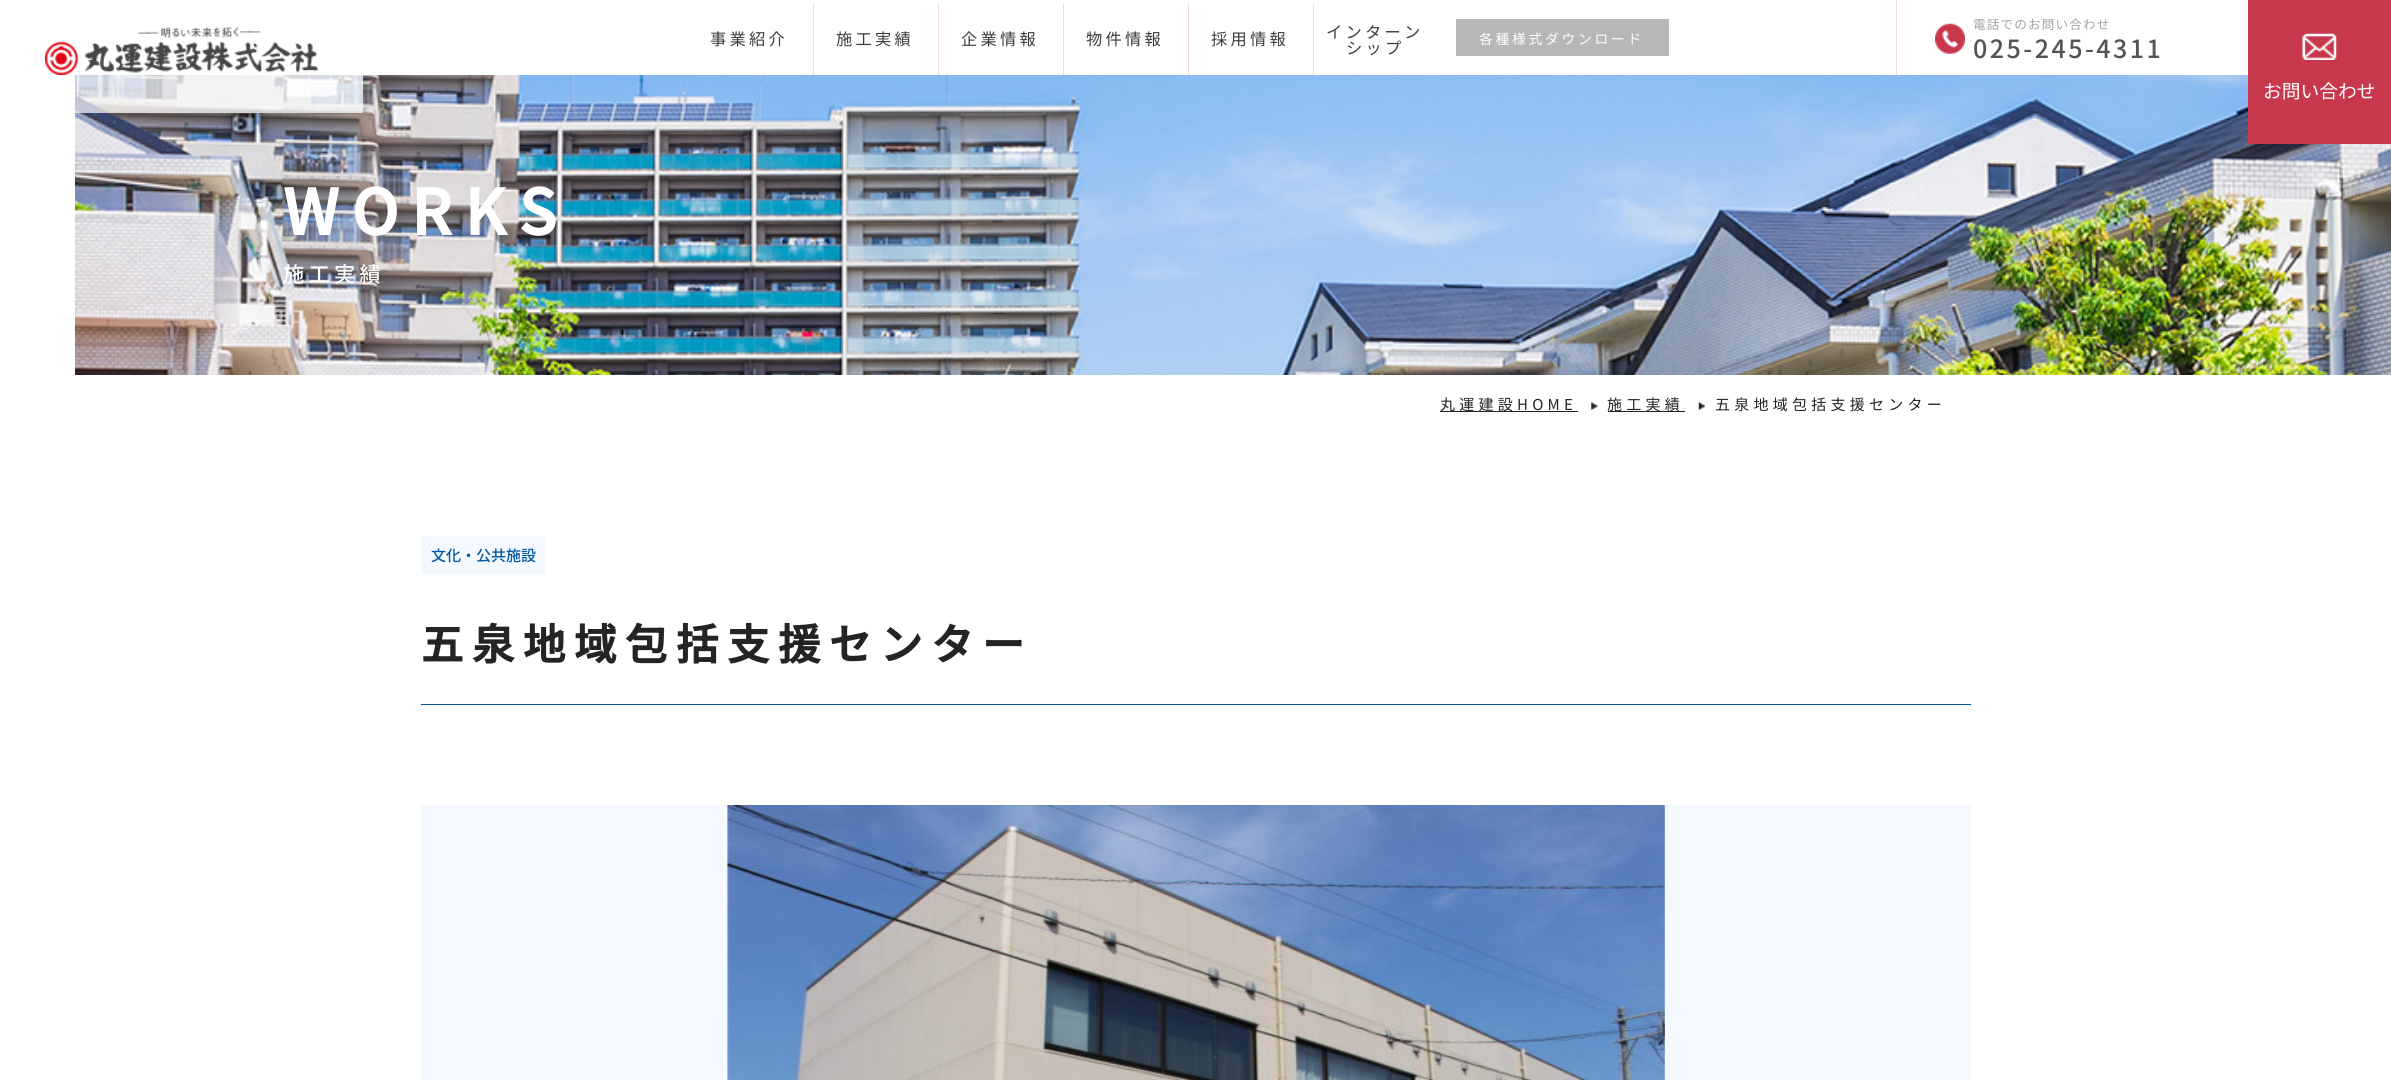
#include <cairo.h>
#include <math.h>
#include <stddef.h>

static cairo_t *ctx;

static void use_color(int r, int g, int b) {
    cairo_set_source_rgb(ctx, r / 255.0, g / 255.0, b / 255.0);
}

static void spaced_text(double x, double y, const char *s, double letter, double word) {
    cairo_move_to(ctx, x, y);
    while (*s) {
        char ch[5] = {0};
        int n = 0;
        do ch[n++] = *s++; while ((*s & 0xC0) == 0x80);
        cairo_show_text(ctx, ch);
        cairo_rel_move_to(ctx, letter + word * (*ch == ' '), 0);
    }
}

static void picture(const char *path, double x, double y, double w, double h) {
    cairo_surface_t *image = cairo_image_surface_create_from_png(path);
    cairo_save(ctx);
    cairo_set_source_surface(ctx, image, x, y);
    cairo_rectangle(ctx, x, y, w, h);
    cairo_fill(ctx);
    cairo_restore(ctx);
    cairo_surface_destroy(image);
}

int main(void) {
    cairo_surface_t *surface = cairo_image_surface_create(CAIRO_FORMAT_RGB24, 2391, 1080);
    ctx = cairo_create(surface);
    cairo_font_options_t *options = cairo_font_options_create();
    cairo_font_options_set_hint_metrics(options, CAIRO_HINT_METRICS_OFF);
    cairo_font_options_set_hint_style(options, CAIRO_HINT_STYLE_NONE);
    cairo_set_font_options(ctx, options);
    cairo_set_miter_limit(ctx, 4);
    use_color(255, 255, 255);
    cairo_paint(ctx);
    picture("img4.png", 75, 75, 2316, 300);
    cairo_set_source_rgba(ctx, 1, 1, 1, 0.7);
    cairo_rectangle(ctx, 75, 75, 288, 38);
    cairo_fill(ctx);
    picture("img1.png", 45, 27, 273, 48);
    cairo_select_font_face(ctx, "Noto Sans JP", CAIRO_FONT_SLANT_NORMAL, CAIRO_FONT_WEIGHT_NORMAL);
    cairo_set_font_size(ctx, 16.25);
    use_color(61, 61, 61);
    spaced_text(710, 45, "事業紹介", 3.25, 0);
    use_color(238, 218, 218);
    cairo_rectangle(ctx, 813, 4, 1, 71);
    cairo_fill(ctx);
    use_color(61, 61, 61);
    spaced_text(836, 45, "施工実績", 3.25, 0);
    use_color(238, 218, 218);
    cairo_rectangle(ctx, 938, 4, 1, 71);
    cairo_fill(ctx);
    use_color(61, 61, 61);
    spaced_text(961, 45, "企業情報", 3.25, 0);
    use_color(238, 218, 218);
    cairo_rectangle(ctx, 1063, 4, 1, 71);
    cairo_fill(ctx);
    use_color(61, 61, 61);
    spaced_text(1086, 45, "物件情報", 3.25, 0);
    use_color(238, 218, 218);
    cairo_rectangle(ctx, 1188, 4, 1, 71);
    cairo_fill(ctx);
    use_color(61, 61, 61);
    spaced_text(1211, 45, "採用情報", 3.25, 0);
    use_color(238, 218, 218);
    cairo_rectangle(ctx, 1313, 4, 1, 71);
    cairo_fill(ctx);
    use_color(61, 61, 61);
    spaced_text(1326, 38, "インターン", 3.25, 0);
    spaced_text(1346, 54, "シップ", 3.25, 0);
    use_color(183, 183, 183);
    cairo_rectangle(ctx, 1456, 19, 213, 37);
    cairo_fill(ctx);
    cairo_set_font_size(ctx, 13.75);
    use_color(255, 255, 255);
    spaced_text(1479, 44, "各種様式ダウンロード", 2.75, 0);
    use_color(238, 218, 218);
    cairo_rectangle(ctx, 1896, 0, 1, 75);
    cairo_fill(ctx);
    picture("img2.png", 1935, 23, 30, 31);
    cairo_set_font_size(ctx, 12.5);
    use_color(162, 162, 162);
    spaced_text(1973, 29, "電話でのお問い合わせ", 1.25, 0);
    cairo_select_font_face(ctx, "Noto Sans JP Medium", CAIRO_FONT_SLANT_NORMAL, CAIRO_FONT_WEIGHT_NORMAL);
    cairo_set_font_size(ctx, 25);
    use_color(84, 84, 84);
    spaced_text(1973, 58, "025-245-4311", 2.5, 0);
    use_color(200, 56, 77);
    cairo_rectangle(ctx, 2248, 0, 143, 144);
    cairo_fill(ctx);
    picture("img3.png", 2302, 33, 35, 27);
    cairo_select_font_face(ctx, "Noto Sans JP", CAIRO_FONT_SLANT_NORMAL, CAIRO_FONT_WEIGHT_NORMAL);
    cairo_set_font_size(ctx, 18.75);
    use_color(255, 255, 255);
    cairo_move_to(ctx, 2263, 98);
    cairo_show_text(ctx, "お問い合わせ");
    cairo_select_font_face(ctx, "Noto Sans JP", CAIRO_FONT_SLANT_NORMAL, CAIRO_FONT_WEIGHT_BOLD);
    cairo_set_font_size(ctx, 62.5);
    spaced_text(283, 235, "WORKS", 12.5, 0);
    cairo_select_font_face(ctx, "Noto Sans JP Medium", CAIRO_FONT_SLANT_NORMAL, CAIRO_FONT_WEIGHT_NORMAL);
    cairo_set_font_size(ctx, 21.25);
    spaced_text(283, 282, "施工実績", 4.25, 0);
    use_color(36, 36, 36);
    cairo_rectangle(ctx, 1440, 411, 138, 1);
    cairo_fill(ctx);
    cairo_select_font_face(ctx, "Noto Sans JP", CAIRO_FONT_SLANT_NORMAL, CAIRO_FONT_WEIGHT_NORMAL);
    cairo_set_font_size(ctx, 15);
    spaced_text(1440, 410, "丸運建設HOME", 4.25, 0);
    picture("img5.png", 1591, 402, 7, 8);
    cairo_rectangle(ctx, 1608, 411, 77, 1);
    cairo_fill(ctx);
    spaced_text(1607, 410, "施工実績", 4.25, 0);
    picture("img6.png", 1698, 402, 7, 8);
    spaced_text(1715, 410, "五泉地域包括支援センター", 4.25, 0);
    use_color(243, 249, 254);
    cairo_rectangle(ctx, 421, 536, 125, 38);
    cairo_fill(ctx);
    cairo_select_font_face(ctx, "Noto Sans JP Medium", CAIRO_FONT_SLANT_NORMAL, CAIRO_FONT_WEIGHT_NORMAL);
    use_color(2, 89, 162);
    cairo_move_to(ctx, 431, 561);
    cairo_show_text(ctx, "文化・公共施設");
    use_color(2, 90, 163);
    cairo_rectangle(ctx, 421, 704, 1550, 1);
    cairo_fill(ctx);
    cairo_select_font_face(ctx, "Noto Sans JP", CAIRO_FONT_SLANT_NORMAL, CAIRO_FONT_WEIGHT_BOLD);
    cairo_set_font_size(ctx, 42.5);
    use_color(36, 36, 36);
    spaced_text(421, 660, "五泉地域包括支援センター", 8.5, 0);
    use_color(243, 249, 254);
    cairo_rectangle(ctx, 421, 805, 1550, 275);
    cairo_fill(ctx);
    picture("img7.png", 727, 805, 938, 275);
    cairo_surface_write_to_png(surface, "result.png");
    cairo_font_options_destroy(options);
    cairo_destroy(ctx);
    cairo_surface_destroy(surface);
    return 0;
}
